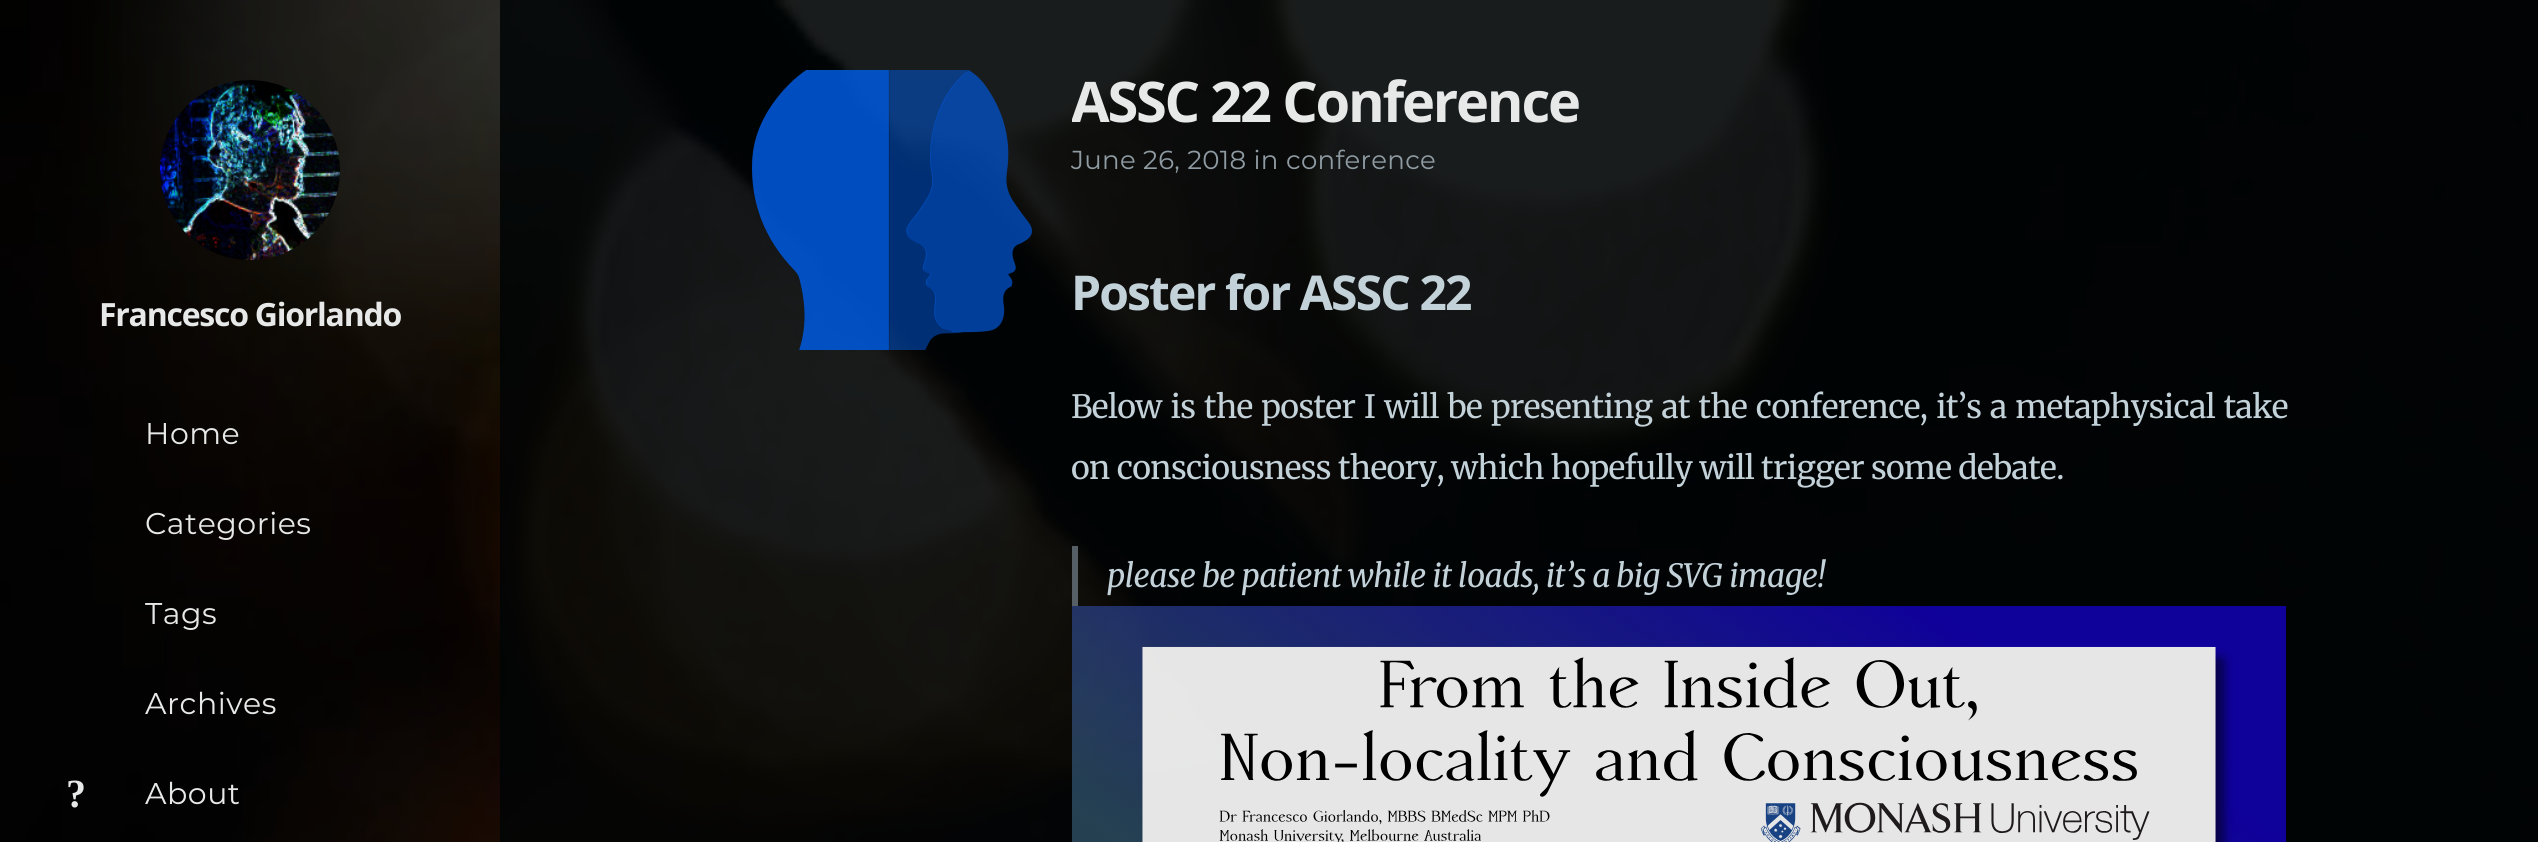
#include <cairo.h>
#include <math.h>
#include <stddef.h>

static cairo_t *ctx;

static void use_color(int r, int g, int b) {
    cairo_set_source_rgb(ctx, r / 255.0, g / 255.0, b / 255.0);
}

static void spaced_text(double x, double y, const char *s, double letter, double word) {
    cairo_move_to(ctx, x, y);
    while (*s) {
        char ch[5] = {0};
        int n = 0;
        do ch[n++] = *s++; while ((*s & 0xC0) == 0x80);
        cairo_show_text(ctx, ch);
        cairo_rel_move_to(ctx, letter + word * (*ch == ' '), 0);
    }
}

static void picture(const char *path, double x, double y, double w, double h) {
    cairo_surface_t *image = cairo_image_surface_create_from_png(path);
    cairo_save(ctx);
    cairo_set_source_surface(ctx, image, x, y);
    cairo_rectangle(ctx, x, y, w, h);
    cairo_fill(ctx);
    cairo_restore(ctx);
    cairo_surface_destroy(image);
}

int main(void) {
    cairo_surface_t *surface = cairo_image_surface_create(CAIRO_FORMAT_RGB24, 2538, 842);
    ctx = cairo_create(surface);
    cairo_font_options_t *options = cairo_font_options_create();
    cairo_font_options_set_hint_metrics(options, CAIRO_HINT_METRICS_OFF);
    cairo_font_options_set_hint_style(options, CAIRO_HINT_STYLE_NONE);
    cairo_set_font_options(ctx, options);
    cairo_set_miter_limit(ctx, 4);
    use_color(255, 255, 255);
    cairo_paint(ctx);
    picture("img1.png", 0, 0, 2538, 842);
    cairo_set_source_rgba(ctx, 0, 0, 0, 0.42);
    cairo_rectangle(ctx, 0, 0, 500, 842);
    cairo_fill(ctx);
    picture("img2.png", 160, 80, 180, 180);
    cairo_select_font_face(ctx, "Open Sans", CAIRO_FONT_SLANT_NORMAL, CAIRO_FONT_WEIGHT_BOLD);
    cairo_set_font_size(ctx, 32);
    use_color(231, 232, 232);
    spaced_text(99, 326, "Francesco Giorlando", -1.25, 0);
    cairo_select_font_face(ctx, "Montserrat Thin", CAIRO_FONT_SLANT_NORMAL, CAIRO_FONT_WEIGHT_NORMAL);
    cairo_set_font_size(ctx, 30);
    spaced_text(145, 444, "Home", 0.5, 0);
    spaced_text(145, 534, "Categories", 0.5, 0);
    spaced_text(145, 624, "Tags", 0.5, 0);
    spaced_text(145, 714, "Archives", 0.5, 0);
    cairo_select_font_face(ctx, "Liberation Serif", CAIRO_FONT_SLANT_NORMAL, CAIRO_FONT_WEIGHT_BOLD);
    cairo_set_font_size(ctx, 40);
    spaced_text(66, 807, "?", 0.3, 0);
    cairo_select_font_face(ctx, "Montserrat Thin", CAIRO_FONT_SLANT_NORMAL, CAIRO_FONT_WEIGHT_NORMAL);
    cairo_set_font_size(ctx, 30);
    spaced_text(145, 804, "About", 0.5, 0);
    cairo_set_source_rgba(ctx, 0.004, 0.016, 0.02, 0.9);
    cairo_rectangle(ctx, 500, 0, 2038, 842);
    cairo_fill(ctx);
    picture("img3.png", 752, 70, 280, 280);
    cairo_save(ctx);
    cairo_rectangle(ctx, 1072, 60, 1216, 82);
    cairo_clip(ctx);
    cairo_select_font_face(ctx, "Open Sans", CAIRO_FONT_SLANT_NORMAL, CAIRO_FONT_WEIGHT_BOLD);
    cairo_set_font_size(ctx, 56);
    use_color(231, 232, 232);
    spaced_text(1071, 122, "ASSC 22 Conference", -2.25, 0);
    cairo_restore(ctx);
    cairo_set_font_size(ctx, 26);
    use_color(143, 155, 162);
    spaced_text(1071, 169, "June 26, 2018 in", 0.3, 0);
    spaced_text(1286, 169, "conference", 0.3, 0);
    cairo_select_font_face(ctx, "Open Sans", CAIRO_FONT_SLANT_NORMAL, CAIRO_FONT_WEIGHT_BOLD);
    cairo_set_font_size(ctx, 48);
    use_color(195, 209, 217);
    spaced_text(1071, 310, "Poster for ASSC 22", -1.9, 0);
    cairo_select_font_face(ctx, "Merriweather", CAIRO_FONT_SLANT_NORMAL, CAIRO_FONT_WEIGHT_NORMAL);
    cairo_set_font_size(ctx, 32);
    spaced_text(1071, 418, "Below is the poster I will be presenting at the conference, it’s a metaphysical take", -0.6, 1.75);
    spaced_text(1071, 479, "on consciousness theory, which hopefully will trigger some debate.", -0.6, 0);
    cairo_set_source_rgba(ctx, 0.365, 0.408, 0.435, 0.9);
    cairo_rectangle(ctx, 1072, 546, 6, 60);
    cairo_fill(ctx);
    cairo_select_font_face(ctx, "Merriweather", CAIRO_FONT_SLANT_ITALIC, CAIRO_FONT_WEIGHT_NORMAL);
    use_color(195, 209, 217);
    spaced_text(1107, 587, "please be patient while it loads, it’s a big SVG image!", -0.6, 0);
    picture("img4.png", 1072, 606, 1214, 236);
    cairo_surface_write_to_png(surface, "result.png");
    cairo_font_options_destroy(options);
    cairo_destroy(ctx);
    cairo_surface_destroy(surface);
    return 0;
}
